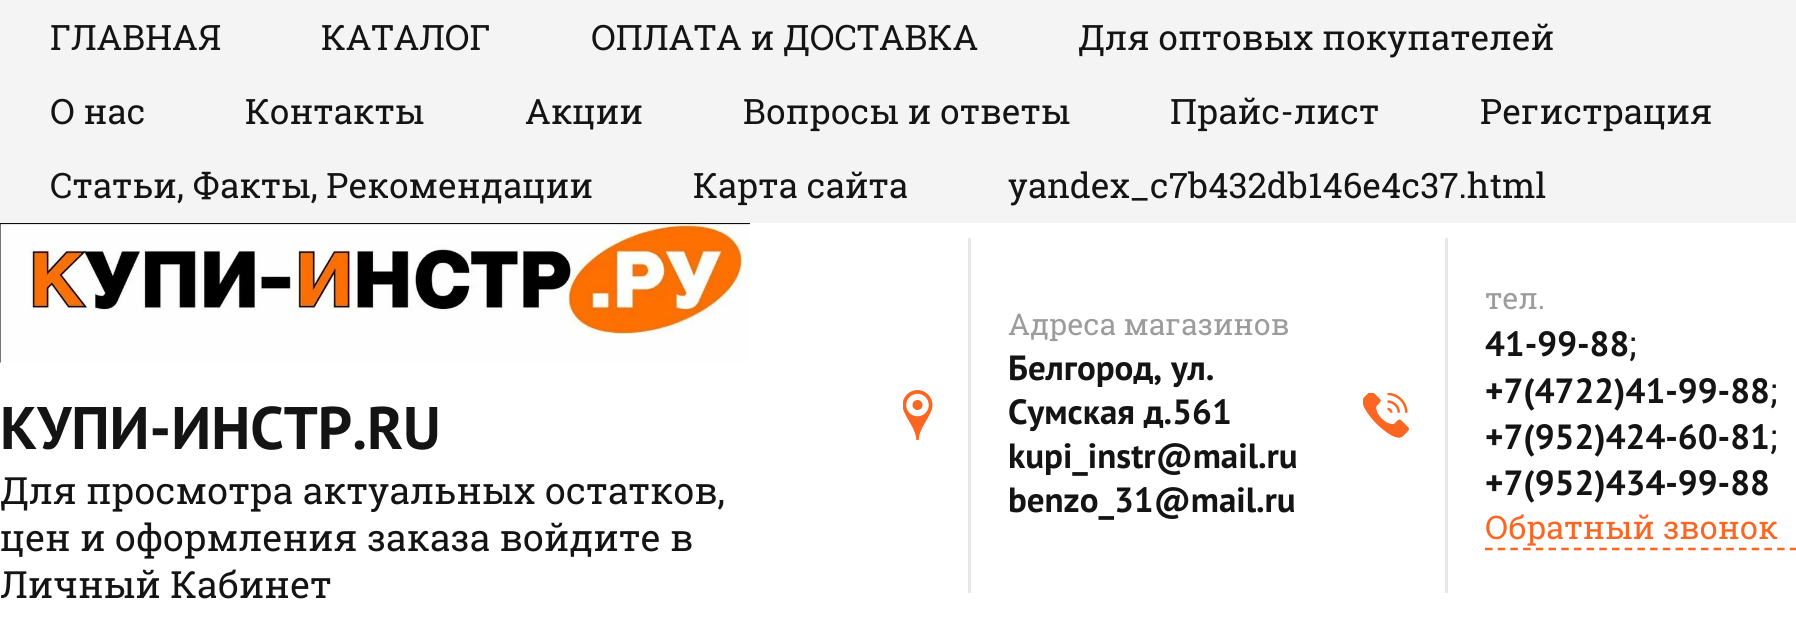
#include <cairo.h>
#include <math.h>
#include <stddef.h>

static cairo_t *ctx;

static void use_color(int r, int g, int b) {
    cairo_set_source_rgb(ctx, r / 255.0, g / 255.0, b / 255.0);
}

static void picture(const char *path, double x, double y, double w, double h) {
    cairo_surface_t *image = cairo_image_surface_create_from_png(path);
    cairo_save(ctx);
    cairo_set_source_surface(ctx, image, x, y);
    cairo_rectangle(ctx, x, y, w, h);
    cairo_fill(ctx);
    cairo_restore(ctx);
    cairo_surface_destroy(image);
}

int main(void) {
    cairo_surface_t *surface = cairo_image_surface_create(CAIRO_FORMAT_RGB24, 1796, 639);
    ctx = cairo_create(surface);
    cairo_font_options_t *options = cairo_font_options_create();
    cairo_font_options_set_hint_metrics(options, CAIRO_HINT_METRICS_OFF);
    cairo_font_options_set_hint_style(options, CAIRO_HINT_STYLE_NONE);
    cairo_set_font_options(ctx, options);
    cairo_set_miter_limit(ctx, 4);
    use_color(255, 255, 255);
    cairo_paint(ctx);
    use_color(244, 244, 244);
    cairo_rectangle(ctx, 0, 0, 1796, 223);
    cairo_fill(ctx);
    cairo_select_font_face(ctx, "Roboto Slab", CAIRO_FONT_SLANT_NORMAL, CAIRO_FONT_WEIGHT_NORMAL);
    cairo_set_font_size(ctx, 35);
    use_color(20, 20, 20);
    cairo_move_to(ctx, 50, 50);
    cairo_show_text(ctx, "ГЛАВНАЯ");
    cairo_move_to(ctx, 321, 50);
    cairo_show_text(ctx, "КАТАЛОГ");
    cairo_move_to(ctx, 591, 50);
    cairo_show_text(ctx, "ОПЛАТА и ДОСТАВКА");
    cairo_move_to(ctx, 1078, 50);
    cairo_show_text(ctx, "Для оптовых покупателей");
    cairo_move_to(ctx, 50, 124);
    cairo_show_text(ctx, "О нас");
    cairo_move_to(ctx, 245, 124);
    cairo_show_text(ctx, "Контакты");
    cairo_move_to(ctx, 525, 124);
    cairo_show_text(ctx, "Акции");
    cairo_move_to(ctx, 743, 124);
    cairo_show_text(ctx, "Вопросы и ответы");
    cairo_move_to(ctx, 1170, 124);
    cairo_show_text(ctx, "Прайс-лист");
    cairo_move_to(ctx, 1480, 124);
    cairo_show_text(ctx, "Регистрация");
    cairo_move_to(ctx, 50, 198);
    cairo_show_text(ctx, "Статьи, Факты, Рекомендации");
    cairo_move_to(ctx, 693, 198);
    cairo_show_text(ctx, "Карта сайта");
    cairo_move_to(ctx, 1008, 198);
    cairo_show_text(ctx, "yandex_c7b432db146e4c37.html");
    picture("img1.png", 0, 223, 750, 140);
    cairo_select_font_face(ctx, "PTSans", CAIRO_FONT_SLANT_NORMAL, CAIRO_FONT_WEIGHT_BOLD);
    cairo_set_font_size(ctx, 60);
    cairo_move_to(ctx, 0, 449);
    cairo_show_text(ctx, "КУПИ-ИНСТР.RU");
    cairo_select_font_face(ctx, "Roboto Slab", CAIRO_FONT_SLANT_NORMAL, CAIRO_FONT_WEIGHT_NORMAL);
    cairo_set_font_size(ctx, 37.5);
    cairo_move_to(ctx, 0, 504);
    cairo_show_text(ctx, "Для просмотра актуальных остатков,");
    cairo_move_to(ctx, 0, 551);
    cairo_show_text(ctx, "цен и оформления заказа войдите в");
    cairo_move_to(ctx, 0, 598);
    cairo_show_text(ctx, "Личный Кабинет");
    use_color(231, 231, 231);
    cairo_rectangle(ctx, 968, 238, 3, 355);
    cairo_fill(ctx);
    cairo_set_font_size(ctx, 30);
    use_color(156, 156, 156);
    cairo_move_to(ctx, 1008, 335);
    cairo_show_text(ctx, "Адреса магазинов");
    picture("img2.png", 903, 390, 30, 50);
    cairo_select_font_face(ctx, "PTSans", CAIRO_FONT_SLANT_NORMAL, CAIRO_FONT_WEIGHT_BOLD);
    cairo_set_font_size(ctx, 35);
    use_color(20, 20, 20);
    cairo_move_to(ctx, 1008, 380);
    cairo_show_text(ctx, "Белгород, ул.");
    cairo_move_to(ctx, 1008, 424);
    cairo_show_text(ctx, "Сумская д.561");
    cairo_move_to(ctx, 1008, 468);
    cairo_show_text(ctx, "kupi_instr@mail.ru");
    cairo_move_to(ctx, 1008, 512);
    cairo_show_text(ctx, "benzo_31@mail.ru");
    use_color(231, 231, 231);
    cairo_rectangle(ctx, 1445, 238, 3, 355);
    cairo_fill(ctx);
    cairo_select_font_face(ctx, "Roboto Slab", CAIRO_FONT_SLANT_NORMAL, CAIRO_FONT_WEIGHT_NORMAL);
    cairo_set_font_size(ctx, 30);
    use_color(156, 156, 156);
    cairo_move_to(ctx, 1485, 309);
    cairo_show_text(ctx, "тел.");
    picture("img3.png", 1363, 393, 46, 45);
    cairo_select_font_face(ctx, "PTSans", CAIRO_FONT_SLANT_NORMAL, CAIRO_FONT_WEIGHT_BOLD);
    cairo_set_font_size(ctx, 35);
    use_color(20, 20, 20);
    cairo_move_to(ctx, 1485, 356);
    cairo_show_text(ctx, "41-99-88");
    cairo_select_font_face(ctx, "Roboto Slab", CAIRO_FONT_SLANT_NORMAL, CAIRO_FONT_WEIGHT_NORMAL);
    cairo_move_to(ctx, 1629, 356);
    cairo_show_text(ctx, ";");
    cairo_select_font_face(ctx, "PTSans", CAIRO_FONT_SLANT_NORMAL, CAIRO_FONT_WEIGHT_BOLD);
    cairo_move_to(ctx, 1485, 403);
    cairo_show_text(ctx, "+7(4722)41-99-88");
    cairo_select_font_face(ctx, "Roboto Slab", CAIRO_FONT_SLANT_NORMAL, CAIRO_FONT_WEIGHT_NORMAL);
    cairo_move_to(ctx, 1770, 403);
    cairo_show_text(ctx, ";");
    cairo_select_font_face(ctx, "PTSans", CAIRO_FONT_SLANT_NORMAL, CAIRO_FONT_WEIGHT_BOLD);
    cairo_move_to(ctx, 1485, 449);
    cairo_show_text(ctx, "+7(952)424-60-81");
    cairo_select_font_face(ctx, "Roboto Slab", CAIRO_FONT_SLANT_NORMAL, CAIRO_FONT_WEIGHT_NORMAL);
    cairo_move_to(ctx, 1770, 449);
    cairo_show_text(ctx, ";");
    cairo_select_font_face(ctx, "PTSans", CAIRO_FONT_SLANT_NORMAL, CAIRO_FONT_WEIGHT_BOLD);
    cairo_move_to(ctx, 1485, 495);
    cairo_show_text(ctx, "+7(952)434-99-88");
    cairo_new_path(ctx);
    cairo_move_to(ctx, 1485, 549);
    cairo_line_to(ctx, 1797.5, 549);
    use_color(251, 103, 35);
    cairo_set_line_width(ctx, 2.5);
    cairo_set_dash(ctx, (double[]){7.5, 5.2}, 2, 0);
    cairo_stroke(ctx);
    cairo_select_font_face(ctx, "Roboto Slab", CAIRO_FONT_SLANT_NORMAL, CAIRO_FONT_WEIGHT_NORMAL);
    cairo_set_font_size(ctx, 32.5);
    cairo_move_to(ctx, 1485, 539);
    cairo_show_text(ctx, "Обратный звонок");
    cairo_surface_write_to_png(surface, "result.png");
    cairo_font_options_destroy(options);
    cairo_destroy(ctx);
    cairo_surface_destroy(surface);
    return 0;
}
